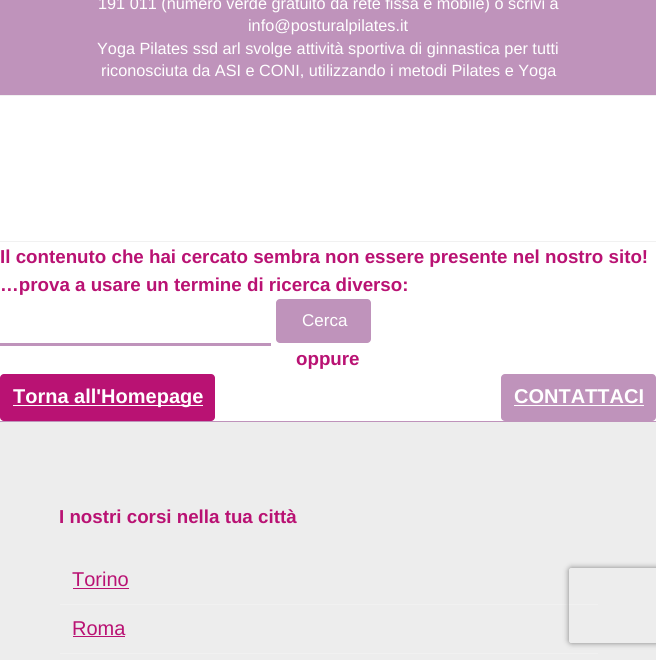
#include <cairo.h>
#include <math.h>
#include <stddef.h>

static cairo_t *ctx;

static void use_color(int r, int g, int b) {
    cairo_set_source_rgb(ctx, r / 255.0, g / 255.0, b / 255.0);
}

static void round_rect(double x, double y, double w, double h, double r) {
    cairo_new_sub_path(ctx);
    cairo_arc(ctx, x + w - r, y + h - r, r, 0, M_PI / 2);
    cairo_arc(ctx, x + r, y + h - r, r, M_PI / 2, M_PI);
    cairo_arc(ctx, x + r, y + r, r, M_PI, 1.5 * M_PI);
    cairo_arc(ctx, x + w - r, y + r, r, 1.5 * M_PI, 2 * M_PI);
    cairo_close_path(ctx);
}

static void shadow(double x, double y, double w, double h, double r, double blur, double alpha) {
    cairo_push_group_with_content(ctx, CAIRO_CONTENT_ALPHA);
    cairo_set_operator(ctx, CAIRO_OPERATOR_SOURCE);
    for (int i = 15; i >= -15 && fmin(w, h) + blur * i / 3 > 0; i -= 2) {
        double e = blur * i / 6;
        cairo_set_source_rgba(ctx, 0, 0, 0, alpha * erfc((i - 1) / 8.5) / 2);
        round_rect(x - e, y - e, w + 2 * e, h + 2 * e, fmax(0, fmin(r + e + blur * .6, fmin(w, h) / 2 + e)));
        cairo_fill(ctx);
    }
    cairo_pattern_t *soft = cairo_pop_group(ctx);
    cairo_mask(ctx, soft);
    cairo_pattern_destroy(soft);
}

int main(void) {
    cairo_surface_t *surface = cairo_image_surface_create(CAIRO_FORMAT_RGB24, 656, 660);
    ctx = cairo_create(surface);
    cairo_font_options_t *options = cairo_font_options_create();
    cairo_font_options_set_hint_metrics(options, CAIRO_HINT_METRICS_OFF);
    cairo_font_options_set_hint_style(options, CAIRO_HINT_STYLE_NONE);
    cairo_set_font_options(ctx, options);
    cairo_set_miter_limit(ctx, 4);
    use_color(255, 255, 255);
    cairo_paint(ctx);
    use_color(191, 147, 187);
    cairo_rectangle(ctx, 0, 0, 656, 95);
    cairo_fill(ctx);
    cairo_select_font_face(ctx, "Liberation Sans", CAIRO_FONT_SLANT_NORMAL, CAIRO_FONT_WEIGHT_NORMAL);
    cairo_set_font_size(ctx, 16.25);
    use_color(255, 255, 255);
    cairo_move_to(ctx, 98, 9);
    cairo_show_text(ctx, "191 011 (numero verde gratuito da rete fissa e mobile) o scrivi a");
    cairo_move_to(ctx, 248, 31);
    cairo_show_text(ctx, "info@posturalpilates.it");
    cairo_move_to(ctx, 97, 54);
    cairo_show_text(ctx, "Yoga Pilates ssd arl svolge attività sportiva di ginnastica per tutti");
    cairo_move_to(ctx, 101, 76);
    cairo_show_text(ctx, "riconosciuta da ASI e CONI, utilizzando i metodi Pilates e Yoga");
    use_color(241, 241, 241);
    cairo_rectangle(ctx, 0, 95, 656, 1);
    cairo_fill(ctx);
    cairo_rectangle(ctx, 0, 241, 656, 1);
    cairo_fill(ctx);
    cairo_select_font_face(ctx, "Liberation Sans", CAIRO_FONT_SLANT_NORMAL, CAIRO_FONT_WEIGHT_BOLD);
    cairo_set_font_size(ctx, 18.75);
    use_color(185, 18, 115);
    cairo_move_to(ctx, 0, 263);
    cairo_show_text(ctx, "Il contenuto che hai cercato sembra non essere presente nel nostro sito!");
    cairo_move_to(ctx, 0, 291);
    cairo_show_text(ctx, "…prova a usare un termine di ricerca diverso:");
    use_color(191, 147, 187);
    round_rect(276, 299, 95, 44, 4);
    cairo_fill(ctx);
    cairo_select_font_face(ctx, "Liberation Sans", CAIRO_FONT_SLANT_NORMAL, CAIRO_FONT_WEIGHT_NORMAL);
    cairo_set_font_size(ctx, 17);
    use_color(255, 255, 255);
    cairo_move_to(ctx, 302, 326);
    cairo_show_text(ctx, "Cerca");
    use_color(191, 147, 187);
    cairo_rectangle(ctx, 0, 343, 271, 3);
    cairo_fill(ctx);
    cairo_select_font_face(ctx, "Liberation Sans", CAIRO_FONT_SLANT_NORMAL, CAIRO_FONT_WEIGHT_BOLD);
    cairo_set_font_size(ctx, 18.75);
    use_color(185, 18, 115);
    cairo_move_to(ctx, 296, 365);
    cairo_show_text(ctx, "oppure");
    round_rect(0, 374, 215, 47, 4);
    cairo_fill(ctx);
    use_color(255, 255, 255);
    cairo_rectangle(ctx, 13, 405, 190, 1);
    cairo_fill(ctx);
    cairo_set_font_size(ctx, 20);
    cairo_move_to(ctx, 13, 403);
    cairo_show_text(ctx, "Torna all'Homepage");
    use_color(191, 147, 187);
    round_rect(501, 374, 155, 47, 4);
    cairo_fill(ctx);
    use_color(255, 255, 255);
    cairo_move_to(ctx, 514, 403);
    cairo_show_text(ctx, "CONTATTACI");
    cairo_rectangle(ctx, 514, 405, 130, 1);
    cairo_fill(ctx);
    use_color(237, 237, 237);
    cairo_rectangle(ctx, 0, 422, 656, 238);
    cairo_fill(ctx);
    use_color(191, 147, 187);
    cairo_rectangle(ctx, 0, 421, 656, 1);
    cairo_fill(ctx);
    cairo_set_font_size(ctx, 18.75);
    use_color(185, 18, 115);
    cairo_move_to(ctx, 59, 523);
    cairo_show_text(ctx, "I nostri corsi nella tua città");
    use_color(241, 241, 241);
    cairo_rectangle(ctx, 60, 604, 538, 1);
    cairo_fill(ctx);
    cairo_select_font_face(ctx, "Liberation Sans", CAIRO_FONT_SLANT_NORMAL, CAIRO_FONT_WEIGHT_NORMAL);
    cairo_set_font_size(ctx, 20);
    use_color(185, 18, 115);
    cairo_move_to(ctx, 72, 586);
    cairo_show_text(ctx, "Torino");
    cairo_rectangle(ctx, 73, 588, 56, 1);
    cairo_fill(ctx);
    use_color(241, 241, 241);
    cairo_rectangle(ctx, 60, 653, 538, 1);
    cairo_fill(ctx);
    use_color(185, 18, 115);
    cairo_move_to(ctx, 72, 635);
    cairo_show_text(ctx, "Roma");
    cairo_rectangle(ctx, 73, 636, 52, 1);
    cairo_fill(ctx);
    cairo_save(ctx);
    cairo_set_fill_rule(ctx, CAIRO_FILL_RULE_EVEN_ODD);
    cairo_new_path(ctx);
    cairo_move_to(ctx, 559, 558);
    cairo_line_to(ctx, 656, 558);
    cairo_line_to(ctx, 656, 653);
    cairo_line_to(ctx, 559, 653);
    cairo_close_path(ctx);
    cairo_move_to(ctx, 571.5, 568);
    cairo_line_to(ctx, 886.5, 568);
    cairo_curve_to(ctx, 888, 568, 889, 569, 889, 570.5);
    cairo_line_to(ctx, 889, 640.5);
    cairo_curve_to(ctx, 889, 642, 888, 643, 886.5, 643);
    cairo_line_to(ctx, 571.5, 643);
    cairo_curve_to(ctx, 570, 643, 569, 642, 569, 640.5);
    cairo_line_to(ctx, 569, 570.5);
    cairo_curve_to(ctx, 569, 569, 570, 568, 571.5, 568);
    cairo_close_path(ctx);
    cairo_clip(ctx);
    use_color(128, 128, 128);
    shadow(569, 568, 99, 75, 2.5, 3, 1);
    cairo_restore(ctx);
    cairo_surface_write_to_png(surface, "result.png");
    cairo_font_options_destroy(options);
    cairo_destroy(ctx);
    cairo_surface_destroy(surface);
    return 0;
}
